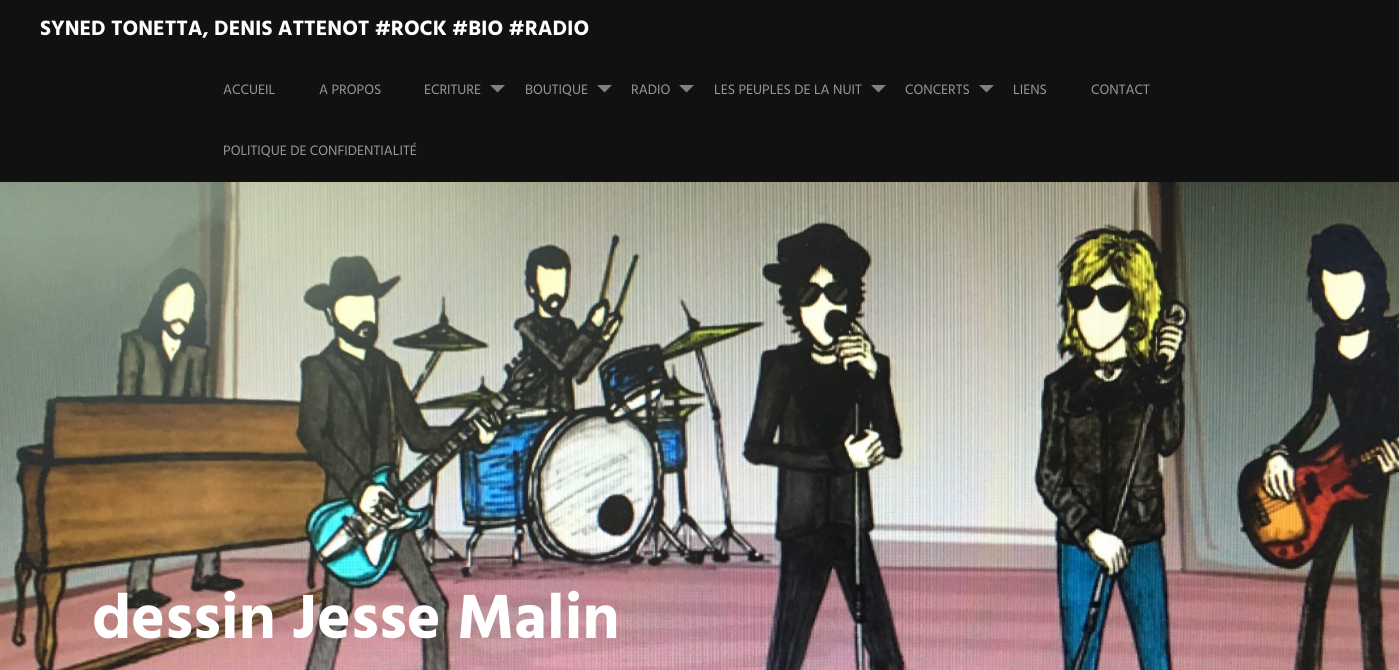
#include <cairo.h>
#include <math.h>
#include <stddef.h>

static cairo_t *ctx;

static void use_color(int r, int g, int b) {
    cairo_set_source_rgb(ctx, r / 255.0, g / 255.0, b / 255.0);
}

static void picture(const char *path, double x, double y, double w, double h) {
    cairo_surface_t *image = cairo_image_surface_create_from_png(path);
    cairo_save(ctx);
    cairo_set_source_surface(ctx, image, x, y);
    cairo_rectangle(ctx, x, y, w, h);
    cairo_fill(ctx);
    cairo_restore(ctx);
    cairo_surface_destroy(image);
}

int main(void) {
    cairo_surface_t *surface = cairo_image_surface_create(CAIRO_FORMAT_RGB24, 1399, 670);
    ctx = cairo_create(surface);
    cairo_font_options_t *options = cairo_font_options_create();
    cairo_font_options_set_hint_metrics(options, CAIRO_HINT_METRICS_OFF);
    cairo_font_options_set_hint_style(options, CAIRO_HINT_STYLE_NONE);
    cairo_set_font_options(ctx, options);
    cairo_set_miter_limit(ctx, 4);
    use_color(255, 255, 255);
    cairo_paint(ctx);
    use_color(17, 17, 17);
    cairo_rectangle(ctx, 0, 0, 1399, 182);
    cairo_fill(ctx);
    cairo_select_font_face(ctx, "Hind", CAIRO_FONT_SLANT_NORMAL, CAIRO_FONT_WEIGHT_BOLD);
    cairo_set_font_size(ctx, 21.3);
    use_color(255, 255, 255);
    cairo_move_to(ctx, 40, 35);
    cairo_show_text(ctx, "SYNED TONETTA, DENIS ATTENOT #ROCK #BIO #RADIO");
    cairo_select_font_face(ctx, "Hind", CAIRO_FONT_SLANT_NORMAL, CAIRO_FONT_WEIGHT_NORMAL);
    cairo_set_font_size(ctx, 14);
    use_color(153, 153, 153);
    cairo_move_to(ctx, 223, 94);
    cairo_show_text(ctx, "ACCUEIL");
    cairo_move_to(ctx, 319, 94);
    cairo_show_text(ctx, "A PROPOS");
    cairo_move_to(ctx, 424, 94);
    cairo_show_text(ctx, "ECRITURE");
    use_color(128, 128, 128);
    cairo_new_path(ctx);
    cairo_move_to(ctx, 490, 85);
    cairo_line_to(ctx, 505, 85);
    cairo_line_to(ctx, 497.5, 92.5);
    cairo_close_path(ctx);
    cairo_fill(ctx);
    use_color(153, 153, 153);
    cairo_move_to(ctx, 525, 94);
    cairo_show_text(ctx, "BOUTIQUE");
    use_color(128, 128, 128);
    cairo_new_path(ctx);
    cairo_move_to(ctx, 597, 85);
    cairo_line_to(ctx, 612, 85);
    cairo_line_to(ctx, 604.5, 92.5);
    cairo_close_path(ctx);
    cairo_fill(ctx);
    use_color(153, 153, 153);
    cairo_move_to(ctx, 631, 94);
    cairo_show_text(ctx, "RADIO");
    use_color(128, 128, 128);
    cairo_new_path(ctx);
    cairo_move_to(ctx, 679, 85);
    cairo_line_to(ctx, 694, 85);
    cairo_line_to(ctx, 686.5, 92.5);
    cairo_close_path(ctx);
    cairo_fill(ctx);
    use_color(153, 153, 153);
    cairo_move_to(ctx, 714, 94);
    cairo_show_text(ctx, "LES PEUPLES DE LA NUIT");
    use_color(128, 128, 128);
    cairo_new_path(ctx);
    cairo_move_to(ctx, 871, 85);
    cairo_line_to(ctx, 886, 85);
    cairo_line_to(ctx, 878.5, 92.5);
    cairo_close_path(ctx);
    cairo_fill(ctx);
    use_color(153, 153, 153);
    cairo_move_to(ctx, 905, 94);
    cairo_show_text(ctx, "CONCERTS");
    use_color(128, 128, 128);
    cairo_new_path(ctx);
    cairo_move_to(ctx, 979, 85);
    cairo_line_to(ctx, 994, 85);
    cairo_line_to(ctx, 986.5, 92.5);
    cairo_close_path(ctx);
    cairo_fill(ctx);
    use_color(153, 153, 153);
    cairo_move_to(ctx, 1013, 94);
    cairo_show_text(ctx, "LIENS");
    cairo_move_to(ctx, 1091, 94);
    cairo_show_text(ctx, "CONTACT");
    cairo_move_to(ctx, 223, 155);
    cairo_show_text(ctx, "POLITIQUE DE CONFIDENTIALITÉ");
    picture("img1.png", 0, 182, 1399, 488);
    cairo_select_font_face(ctx, "Hind", CAIRO_FONT_SLANT_NORMAL, CAIRO_FONT_WEIGHT_BOLD);
    cairo_set_font_size(ctx, 64);
    use_color(255, 255, 255);
    cairo_move_to(ctx, 92, 638);
    cairo_show_text(ctx, "dessin Jesse Malin");
    cairo_surface_write_to_png(surface, "result.png");
    cairo_font_options_destroy(options);
    cairo_destroy(ctx);
    cairo_surface_destroy(surface);
    return 0;
}
